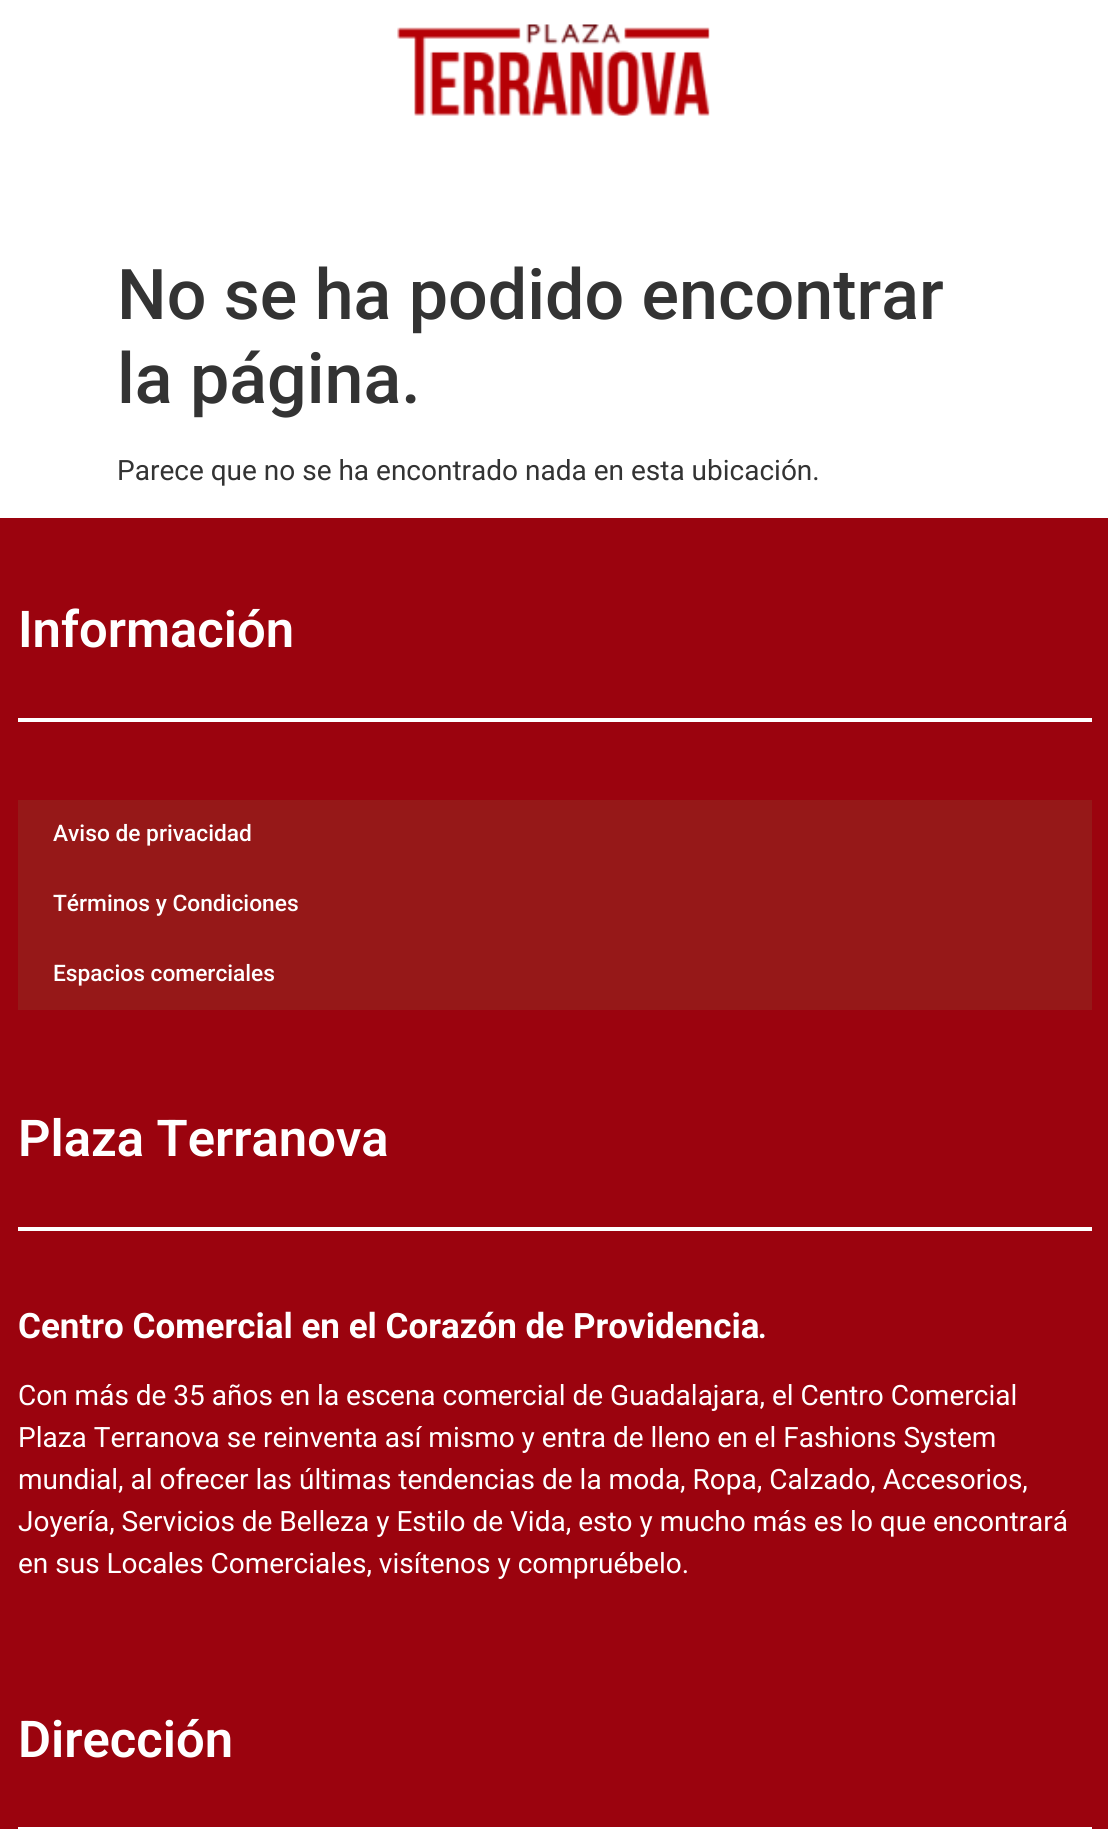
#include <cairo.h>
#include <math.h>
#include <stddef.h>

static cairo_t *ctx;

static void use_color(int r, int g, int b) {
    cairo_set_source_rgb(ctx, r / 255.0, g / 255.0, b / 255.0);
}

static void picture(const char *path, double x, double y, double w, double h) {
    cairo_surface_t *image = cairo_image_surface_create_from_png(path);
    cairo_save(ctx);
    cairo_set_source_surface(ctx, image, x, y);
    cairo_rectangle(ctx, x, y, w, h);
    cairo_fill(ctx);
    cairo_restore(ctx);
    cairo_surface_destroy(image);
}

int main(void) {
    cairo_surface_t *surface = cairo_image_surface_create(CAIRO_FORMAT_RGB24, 1108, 1829);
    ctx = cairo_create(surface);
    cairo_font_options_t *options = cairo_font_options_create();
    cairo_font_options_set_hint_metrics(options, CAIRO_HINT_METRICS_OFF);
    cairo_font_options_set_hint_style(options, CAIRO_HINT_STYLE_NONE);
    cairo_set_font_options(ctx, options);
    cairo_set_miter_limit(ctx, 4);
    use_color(255, 255, 255);
    cairo_paint(ctx);
    picture("img1.png", 397, 24, 313, 92);
    cairo_select_font_face(ctx, "Roboto Medium", CAIRO_FONT_SLANT_NORMAL, CAIRO_FONT_WEIGHT_NORMAL);
    cairo_set_font_size(ctx, 70);
    use_color(51, 51, 51);
    cairo_move_to(ctx, 117, 319);
    cairo_show_text(ctx, "No se ha podido encontrar");
    cairo_move_to(ctx, 117, 403);
    cairo_show_text(ctx, "la página.");
    cairo_select_font_face(ctx, "Roboto", CAIRO_FONT_SLANT_NORMAL, CAIRO_FONT_WEIGHT_NORMAL);
    cairo_set_font_size(ctx, 28);
    cairo_move_to(ctx, 117, 480);
    cairo_show_text(ctx, "Parece que no se ha encontrado nada en esta ubicación.");
    use_color(155, 3, 14);
    cairo_rectangle(ctx, 0, 518, 1108, 1311);
    cairo_fill(ctx);
    cairo_select_font_face(ctx, "Roboto SemiBold", CAIRO_FONT_SLANT_NORMAL, CAIRO_FONT_WEIGHT_NORMAL);
    cairo_set_font_size(ctx, 50.75);
    use_color(255, 255, 255);
    cairo_move_to(ctx, 18, 647);
    cairo_show_text(ctx, "Información");
    cairo_rectangle(ctx, 18, 718, 1074, 4);
    cairo_fill(ctx);
    use_color(150, 24, 24);
    cairo_rectangle(ctx, 18, 800, 1074, 210);
    cairo_fill(ctx);
    cairo_select_font_face(ctx, "Roboto Medium", CAIRO_FONT_SLANT_NORMAL, CAIRO_FONT_WEIGHT_NORMAL);
    cairo_set_font_size(ctx, 22.75);
    use_color(255, 255, 255);
    cairo_move_to(ctx, 53, 841);
    cairo_show_text(ctx, "Aviso de privacidad");
    cairo_move_to(ctx, 53, 911);
    cairo_show_text(ctx, "Términos y Condiciones");
    cairo_move_to(ctx, 53, 981);
    cairo_show_text(ctx, "Espacios comerciales");
    cairo_select_font_face(ctx, "Roboto SemiBold", CAIRO_FONT_SLANT_NORMAL, CAIRO_FONT_WEIGHT_NORMAL);
    cairo_set_font_size(ctx, 50.75);
    cairo_move_to(ctx, 18, 1156);
    cairo_show_text(ctx, "Plaza Terranova");
    cairo_rectangle(ctx, 18, 1227, 1074, 4);
    cairo_fill(ctx);
    cairo_select_font_face(ctx, "Roboto", CAIRO_FONT_SLANT_NORMAL, CAIRO_FONT_WEIGHT_BOLD);
    cairo_set_font_size(ctx, 35);
    cairo_move_to(ctx, 18, 1338);
    cairo_show_text(ctx, "Centro Comercial en el Corazón de Providencia");
    cairo_select_font_face(ctx, "Roboto Medium", CAIRO_FONT_SLANT_ITALIC, CAIRO_FONT_WEIGHT_NORMAL);
    cairo_move_to(ctx, 759, 1338);
    cairo_show_text(ctx, ".");
    cairo_select_font_face(ctx, "Roboto", CAIRO_FONT_SLANT_NORMAL, CAIRO_FONT_WEIGHT_NORMAL);
    cairo_set_font_size(ctx, 28);
    cairo_move_to(ctx, 18, 1405);
    cairo_show_text(ctx, "Con más de 35 años en la escena comercial de Guadalajara, el Centro Comercial");
    cairo_move_to(ctx, 18, 1447);
    cairo_show_text(ctx, "Plaza Terranova se reinventa así mismo y entra de lleno en el Fashions System");
    cairo_move_to(ctx, 18, 1489);
    cairo_show_text(ctx, "mundial, al ofrecer las últimas tendencias de la moda, Ropa, Calzado, Accesorios,");
    cairo_move_to(ctx, 18, 1531);
    cairo_show_text(ctx, "Joyería, Servicios de Belleza y Estilo de Vida, esto y mucho más es lo que encontrará");
    cairo_move_to(ctx, 18, 1573);
    cairo_show_text(ctx, "en sus Locales Comerciales, visítenos y compruébelo.");
    cairo_select_font_face(ctx, "Roboto SemiBold", CAIRO_FONT_SLANT_NORMAL, CAIRO_FONT_WEIGHT_NORMAL);
    cairo_set_font_size(ctx, 50.75);
    cairo_move_to(ctx, 18, 1757);
    cairo_show_text(ctx, "Dirección");
    cairo_rectangle(ctx, 18, 1827, 1074, 2);
    cairo_fill(ctx);
    cairo_surface_write_to_png(surface, "result.png");
    cairo_font_options_destroy(options);
    cairo_destroy(ctx);
    cairo_surface_destroy(surface);
    return 0;
}
